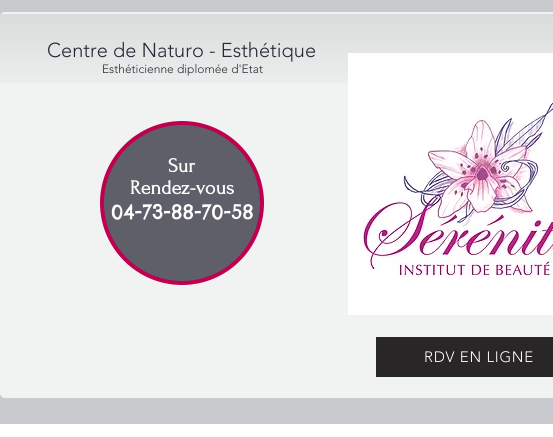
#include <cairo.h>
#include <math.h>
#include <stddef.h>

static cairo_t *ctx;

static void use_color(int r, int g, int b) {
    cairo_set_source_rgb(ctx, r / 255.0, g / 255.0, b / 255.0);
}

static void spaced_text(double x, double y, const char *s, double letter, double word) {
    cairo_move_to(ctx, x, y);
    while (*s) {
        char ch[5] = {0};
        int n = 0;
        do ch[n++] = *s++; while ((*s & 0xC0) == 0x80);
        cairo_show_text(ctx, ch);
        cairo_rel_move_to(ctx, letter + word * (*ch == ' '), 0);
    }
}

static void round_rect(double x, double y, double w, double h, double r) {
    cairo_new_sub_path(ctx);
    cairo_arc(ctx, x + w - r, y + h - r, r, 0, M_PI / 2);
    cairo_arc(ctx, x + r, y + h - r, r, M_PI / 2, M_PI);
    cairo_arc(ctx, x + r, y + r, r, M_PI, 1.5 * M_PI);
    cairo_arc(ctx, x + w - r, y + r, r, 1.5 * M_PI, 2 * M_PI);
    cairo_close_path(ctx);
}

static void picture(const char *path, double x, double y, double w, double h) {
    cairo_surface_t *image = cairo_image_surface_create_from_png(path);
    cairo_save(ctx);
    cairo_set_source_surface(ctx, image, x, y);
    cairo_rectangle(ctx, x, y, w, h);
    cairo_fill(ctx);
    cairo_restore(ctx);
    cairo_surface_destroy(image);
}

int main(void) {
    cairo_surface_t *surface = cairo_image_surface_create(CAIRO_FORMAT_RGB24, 553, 437);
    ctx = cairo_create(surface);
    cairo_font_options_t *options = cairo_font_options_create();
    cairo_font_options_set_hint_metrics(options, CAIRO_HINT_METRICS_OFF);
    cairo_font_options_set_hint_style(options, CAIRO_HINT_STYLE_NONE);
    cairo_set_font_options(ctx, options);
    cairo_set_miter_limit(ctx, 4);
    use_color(201, 202, 205);
    cairo_paint(ctx);
    use_color(241, 242, 242);
    round_rect(0, 12, 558, 386, 5);
    cairo_fill(ctx);
    picture("img1.png", 0, 14, 553, 69);
    cairo_select_font_face(ctx, "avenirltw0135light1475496 Light", CAIRO_FONT_SLANT_NORMAL, CAIRO_FONT_WEIGHT_NORMAL);
    cairo_set_font_size(ctx, 20);
    use_color(40, 41, 54);
    cairo_move_to(ctx, 47, 57);
    cairo_show_text(ctx, "Centre de Naturo - Esthétique");
    cairo_set_font_size(ctx, 12);
    cairo_move_to(ctx, 102, 73);
    cairo_show_text(ctx, "Esthéticienne diplomée d'Etat");
    picture("img2.png", 348, 53, 205, 262);
    use_color(94, 95, 104);
    cairo_new_path(ctx);
    cairo_move_to(ctx, 262, 203);
    cairo_curve_to(ctx, 262, 247, 226, 283, 182, 283);
    cairo_curve_to(ctx, 138, 283, 102, 247, 102, 203);
    cairo_curve_to(ctx, 102, 159, 138, 123, 182, 123);
    cairo_curve_to(ctx, 226, 123, 262, 159, 262, 203);
    cairo_close_path(ctx);
    cairo_fill_preserve(ctx);
    use_color(190, 0, 79);
    cairo_set_line_width(ctx, 4);
    cairo_stroke(ctx);
    cairo_select_font_face(ctx, "Forum", CAIRO_FONT_SLANT_NORMAL, CAIRO_FONT_WEIGHT_BOLD);
    cairo_set_font_size(ctx, 20);
    use_color(255, 255, 255);
    cairo_move_to(ctx, 168, 172);
    cairo_show_text(ctx, "Sur");
    cairo_move_to(ctx, 130, 194);
    cairo_show_text(ctx, "Rendez-vous");
    cairo_select_font_face(ctx, "Chelsea Market", CAIRO_FONT_SLANT_NORMAL, CAIRO_FONT_WEIGHT_NORMAL);
    cairo_move_to(ctx, 111, 219);
    cairo_show_text(ctx, "04-73-88-70-58");
    use_color(40, 38, 38);
    cairo_rectangle(ctx, 376, 337, 177, 40);
    cairo_fill(ctx);
    cairo_select_font_face(ctx, "avenirltw0135light1475496 Light", CAIRO_FONT_SLANT_NORMAL, CAIRO_FONT_WEIGHT_NORMAL);
    cairo_set_font_size(ctx, 15);
    use_color(255, 255, 255);
    spaced_text(424, 362, "RDV EN LIGNE", 0.75, 0);
    cairo_rectangle(ctx, 0, 424, 553, 13);
    cairo_fill(ctx);
    cairo_surface_write_to_png(surface, "result.png");
    cairo_font_options_destroy(options);
    cairo_destroy(ctx);
    cairo_surface_destroy(surface);
    return 0;
}
